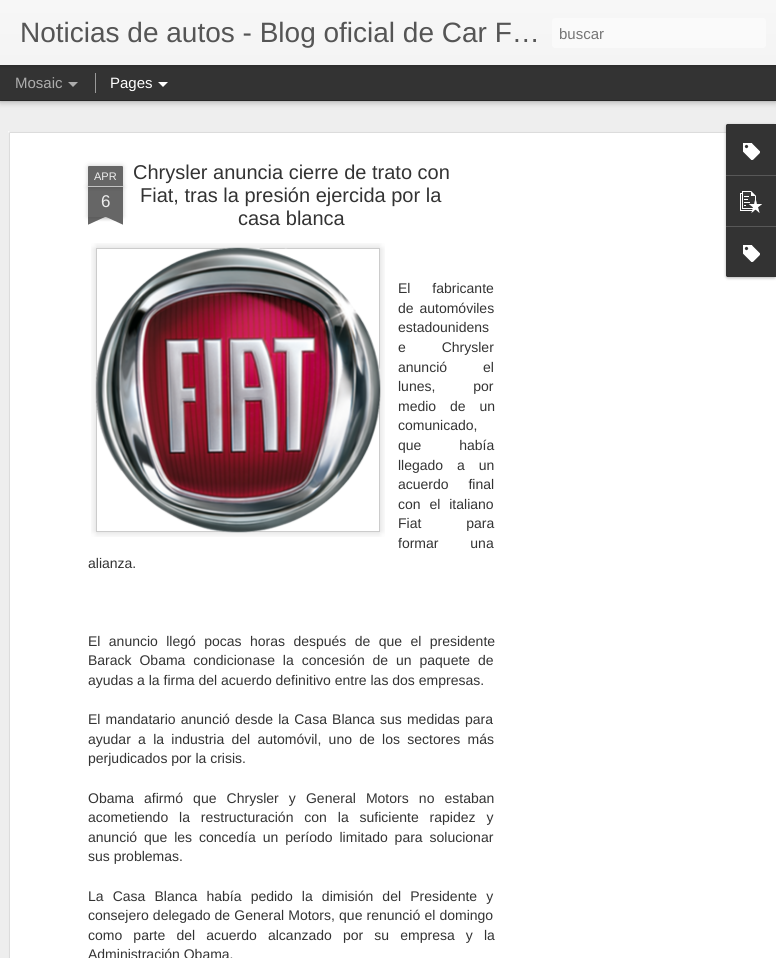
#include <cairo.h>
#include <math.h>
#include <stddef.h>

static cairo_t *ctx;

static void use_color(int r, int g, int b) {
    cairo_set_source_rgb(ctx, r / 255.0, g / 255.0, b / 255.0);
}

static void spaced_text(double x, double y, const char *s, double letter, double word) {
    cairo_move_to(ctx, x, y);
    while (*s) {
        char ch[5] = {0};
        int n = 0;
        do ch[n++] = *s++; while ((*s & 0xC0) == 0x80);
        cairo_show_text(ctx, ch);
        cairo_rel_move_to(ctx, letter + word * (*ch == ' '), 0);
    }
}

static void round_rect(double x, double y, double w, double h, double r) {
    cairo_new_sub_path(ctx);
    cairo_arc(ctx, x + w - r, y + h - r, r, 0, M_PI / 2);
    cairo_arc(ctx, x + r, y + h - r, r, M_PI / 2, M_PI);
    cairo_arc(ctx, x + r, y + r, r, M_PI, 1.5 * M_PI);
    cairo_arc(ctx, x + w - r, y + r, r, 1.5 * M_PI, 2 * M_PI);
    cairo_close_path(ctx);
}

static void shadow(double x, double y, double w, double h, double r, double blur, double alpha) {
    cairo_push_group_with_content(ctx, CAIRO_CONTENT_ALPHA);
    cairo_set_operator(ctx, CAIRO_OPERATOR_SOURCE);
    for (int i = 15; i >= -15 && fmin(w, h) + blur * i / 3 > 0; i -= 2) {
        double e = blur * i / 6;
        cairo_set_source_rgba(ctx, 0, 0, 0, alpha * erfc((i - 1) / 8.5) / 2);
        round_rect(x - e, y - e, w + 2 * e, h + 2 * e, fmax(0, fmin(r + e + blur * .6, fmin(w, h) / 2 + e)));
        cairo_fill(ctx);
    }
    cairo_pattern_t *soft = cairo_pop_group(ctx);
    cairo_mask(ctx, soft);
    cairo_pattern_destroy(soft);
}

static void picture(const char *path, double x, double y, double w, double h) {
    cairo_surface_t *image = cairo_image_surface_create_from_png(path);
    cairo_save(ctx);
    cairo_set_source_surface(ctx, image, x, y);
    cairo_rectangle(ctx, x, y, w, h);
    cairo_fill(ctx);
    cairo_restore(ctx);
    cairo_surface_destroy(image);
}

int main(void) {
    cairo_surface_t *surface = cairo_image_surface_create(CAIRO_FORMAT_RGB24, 776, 958);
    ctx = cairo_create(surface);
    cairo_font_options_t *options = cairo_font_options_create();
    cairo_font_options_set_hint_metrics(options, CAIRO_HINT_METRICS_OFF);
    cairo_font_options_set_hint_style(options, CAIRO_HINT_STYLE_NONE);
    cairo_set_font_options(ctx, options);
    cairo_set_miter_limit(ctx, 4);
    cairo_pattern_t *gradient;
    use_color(51, 51, 51);
    cairo_paint(ctx);
    use_color(238, 238, 238);
    cairo_rectangle(ctx, 0, 101, 776, 857);
    cairo_fill(ctx);
    use_color(0, 0, 0);
    shadow(0, 65, 776, 35, 0, 4, 0.5);
    use_color(51, 51, 51);
    cairo_rectangle(ctx, 0, 65, 776, 35);
    cairo_fill(ctx);
    use_color(153, 153, 153);
    cairo_rectangle(ctx, 95, 73, 1, 20);
    cairo_fill(ctx);
    use_color(0, 0, 0);
    shadow(0, 0, 776, 65, 0, 2.5, 0.3);
    gradient = cairo_pattern_create_linear(0, 0, 0, 65);
    cairo_pattern_add_color_stop_rgba(gradient, 0, 0.969, 0.969, 0.969, 1);
    cairo_pattern_add_color_stop_rgba(gradient, 1, 0.957, 0.957, 0.957, 1);
    cairo_set_source(ctx, gradient);
    cairo_pattern_destroy(gradient);
    cairo_rectangle(ctx, 0, 0, 776, 65);
    cairo_fill(ctx);
    cairo_select_font_face(ctx, "Liberation Sans", CAIRO_FONT_SLANT_NORMAL, CAIRO_FONT_WEIGHT_NORMAL);
    cairo_set_font_size(ctx, 28);
    use_color(85, 85, 85);
    cairo_move_to(ctx, 20, 42);
    cairo_show_text(ctx, "Noticias de autos - Blog oficial de Car F…");
    use_color(250, 250, 250);
    round_rect(552, 18, 214, 30, 3);
    cairo_fill(ctx);
    cairo_set_font_size(ctx, 15);
    use_color(117, 117, 117);
    cairo_move_to(ctx, 559, 39);
    cairo_show_text(ctx, "buscar");
    use_color(173, 173, 173);
    cairo_move_to(ctx, 15, 88);
    cairo_show_text(ctx, "Mosaic");
    cairo_new_path(ctx);
    cairo_move_to(ctx, 68, 82);
    cairo_line_to(ctx, 78, 82);
    cairo_line_to(ctx, 73, 87);
    cairo_close_path(ctx);
    cairo_fill(ctx);
    use_color(255, 255, 255);
    cairo_move_to(ctx, 110, 88);
    cairo_show_text(ctx, "Pages");
    cairo_new_path(ctx);
    cairo_move_to(ctx, 158, 82);
    cairo_line_to(ctx, 168, 82);
    cairo_line_to(ctx, 163, 87);
    cairo_close_path(ctx);
    cairo_fill(ctx);
    cairo_rectangle(ctx, 8, 131, 768, 827);
    cairo_fill(ctx);
    picture("img1.png", 8, 131, 718, 827);
    use_color(0, 0, 0);
    shadow(88, 187, 35, 30, 0, 2.5, 0.2);
    use_color(102, 102, 102);
    cairo_rectangle(ctx, 88, 187, 35, 30);
    cairo_fill(ctx);
    use_color(0, 0, 0);
    shadow(88, 166, 35, 21, 1, 2.5, 0.2);
    use_color(102, 102, 102);
    cairo_new_path(ctx);
    cairo_move_to(ctx, 89, 166);
    cairo_line_to(ctx, 122, 166);
    cairo_curve_to(ctx, 122.5, 166, 123, 166.5, 123, 167);
    cairo_line_to(ctx, 123, 187);
    cairo_line_to(ctx, 88, 187);
    cairo_line_to(ctx, 88, 167);
    cairo_curve_to(ctx, 88, 166.5, 88.5, 166, 89, 166);
    cairo_close_path(ctx);
    cairo_fill(ctx);
    use_color(194, 194, 194);
    cairo_rectangle(ctx, 88, 186, 35, 1);
    cairo_fill(ctx);
    cairo_set_font_size(ctx, 11);
    use_color(238, 238, 238);
    cairo_move_to(ctx, 94, 180);
    cairo_show_text(ctx, "APR");
    cairo_set_font_size(ctx, 17);
    cairo_move_to(ctx, 101, 207);
    cairo_show_text(ctx, "6");
    cairo_save(ctx);
    cairo_rectangle(ctx, 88, 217, 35, 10);
    cairo_clip(ctx);
    use_color(0, 0, 0);
    shadow(79, 207, 50, 10, 0, 2.5, 0.2);
    cairo_restore(ctx);
    cairo_save(ctx);
    cairo_rectangle(ctx, 88, 217, 35, 10);
    cairo_clip(ctx);
    use_color(102, 102, 102);
    cairo_new_path(ctx);
    cairo_move_to(ctx, 79, 218);
    cairo_line_to(ctx, 125, 197);
    cairo_line_to(ctx, 129, 206);
    cairo_line_to(ctx, 83, 227);
    cairo_close_path(ctx);
    cairo_fill(ctx);
    cairo_restore(ctx);
    cairo_save(ctx);
    cairo_rectangle(ctx, 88, 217, 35, 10);
    cairo_clip(ctx);
    use_color(0, 0, 0);
    shadow(82, 207, 50, 10, 0, 2.5, 0.2);
    cairo_restore(ctx);
    cairo_save(ctx);
    cairo_rectangle(ctx, 88, 217, 35, 10);
    cairo_clip(ctx);
    use_color(102, 102, 102);
    cairo_new_path(ctx);
    cairo_move_to(ctx, 86, 197);
    cairo_line_to(ctx, 132, 218);
    cairo_line_to(ctx, 128, 227);
    cairo_line_to(ctx, 82, 206);
    cairo_close_path(ctx);
    cairo_fill(ctx);
    cairo_restore(ctx);
    cairo_set_font_size(ctx, 20);
    use_color(51, 51, 51);
    cairo_move_to(ctx, 133, 179);
    cairo_show_text(ctx, "Chrysler anuncia cierre de trato con");
    cairo_move_to(ctx, 140, 202);
    cairo_show_text(ctx, "Fiat, tras la presión ejercida por la");
    cairo_move_to(ctx, 238, 225);
    cairo_show_text(ctx, "casa blanca");
    picture("img2.png", 91, 243, 294, 294);
    picture("img3.png", 95, 247, 286, 286);
    cairo_set_font_size(ctx, 14);
    spaced_text(398, 293, "El fabricante", 0, 18);
    spaced_text(398, 313, "de automóviles", 0, 2);
    cairo_move_to(ctx, 398, 332);
    cairo_show_text(ctx, "estadounidens");
    spaced_text(398, 352, "e Chrysler", 0, 32);
    spaced_text(398, 372, "anunció el", 0, 32);
    spaced_text(398, 391, "lunes, por", 0, 34);
    spaced_text(398, 411, "medio de un", 0, 10);
    cairo_move_to(ctx, 398, 430);
    cairo_show_text(ctx, "comunicado,");
    spaced_text(398, 450, "que había", 0, 34);
    spaced_text(398, 470, "llegado a un", 0, 10);
    spaced_text(398, 489, "acuerdo final", 0, 16);
    spaced_text(398, 509, "con el italiano", 0, 5);
    spaced_text(398, 528, "Fiat para", 0, 41);
    spaced_text(398, 548, "formar una", 0, 28);
    cairo_move_to(ctx, 88, 568);
    cairo_show_text(ctx, "alianza.");
    spaced_text(88, 646, "El anuncio llegó pocas horas después de que el presidente", 0, 4.5);
    spaced_text(88, 665, "Barack Obama condicionase la concesión de un paquete de", 0, 4);
    cairo_move_to(ctx, 88, 685);
    cairo_show_text(ctx, "ayudas a la firma del acuerdo definitivo entre las dos empresas.");
    spaced_text(88, 724, "El mandatario anunció desde la Casa Blanca sus medidas para", 0, 1.25);
    spaced_text(88, 744, "ayudar a la industria del automóvil, uno de los sectores más", 0, 3.4);
    cairo_move_to(ctx, 88, 763);
    cairo_show_text(ctx, "perjudicados por la crisis.");
    spaced_text(88, 803, "Obama afirmó que Chrysler y General Motors no estaban", 0, 6.25);
    spaced_text(88, 822, "acometiendo la restructuración con la suficiente rapidez y", 0, 7);
    spaced_text(88, 842, "anunció que les concedía un período limitado para solucionar", 0, 3);
    cairo_move_to(ctx, 88, 861);
    cairo_show_text(ctx, "sus problemas.");
    spaced_text(88, 901, "La Casa Blanca había pedido la dimisión del Presidente y", 0, 5.25);
    spaced_text(88, 920, "consejero delegado de General Motors, que renunció el domingo", 0, 0.25);
    spaced_text(88, 940, "como parte del acuerdo alcanzado por su empresa y la", 0, 7.25);
    cairo_move_to(ctx, 88, 959);
    cairo_show_text(ctx, "Administración Obama.");
    use_color(0, 0, 0);
    shadow(726, 125, 50, 153, 2, 1.5, 0.3);
    use_color(51, 51, 51);
    cairo_new_path(ctx);
    cairo_move_to(ctx, 728, 124);
    cairo_line_to(ctx, 776, 124);
    cairo_line_to(ctx, 776, 277);
    cairo_line_to(ctx, 728, 277);
    cairo_curve_to(ctx, 727, 277, 726, 276, 726, 275);
    cairo_line_to(ctx, 726, 126);
    cairo_curve_to(ctx, 726, 125, 727, 124, 728, 124);
    cairo_close_path(ctx);
    cairo_fill(ctx);
    cairo_new_path(ctx);
    cairo_move_to(ctx, 728, 124);
    cairo_line_to(ctx, 776, 124);
    cairo_line_to(ctx, 776, 175);
    cairo_line_to(ctx, 726, 175);
    cairo_line_to(ctx, 726, 126);
    cairo_curve_to(ctx, 726, 125, 727, 124, 728, 124);
    cairo_close_path(ctx);
    cairo_fill(ctx);
    picture("img4.png", 743, 143, 17, 17);
    use_color(88, 88, 88);
    cairo_rectangle(ctx, 726, 175, 50, 1);
    cairo_fill(ctx);
    picture("img5.png", 740, 191, 22, 22);
    use_color(51, 51, 51);
    cairo_new_path(ctx);
    cairo_move_to(ctx, 726, 226);
    cairo_line_to(ctx, 776, 226);
    cairo_line_to(ctx, 776, 277);
    cairo_line_to(ctx, 728, 277);
    cairo_curve_to(ctx, 727, 277, 726, 276, 726, 275);
    cairo_close_path(ctx);
    cairo_fill(ctx);
    use_color(88, 88, 88);
    cairo_rectangle(ctx, 726, 226, 50, 1);
    cairo_fill(ctx);
    picture("img4.png", 743, 245, 17, 17);
    cairo_surface_write_to_png(surface, "result.png");
    cairo_font_options_destroy(options);
    cairo_destroy(ctx);
    cairo_surface_destroy(surface);
    return 0;
}
